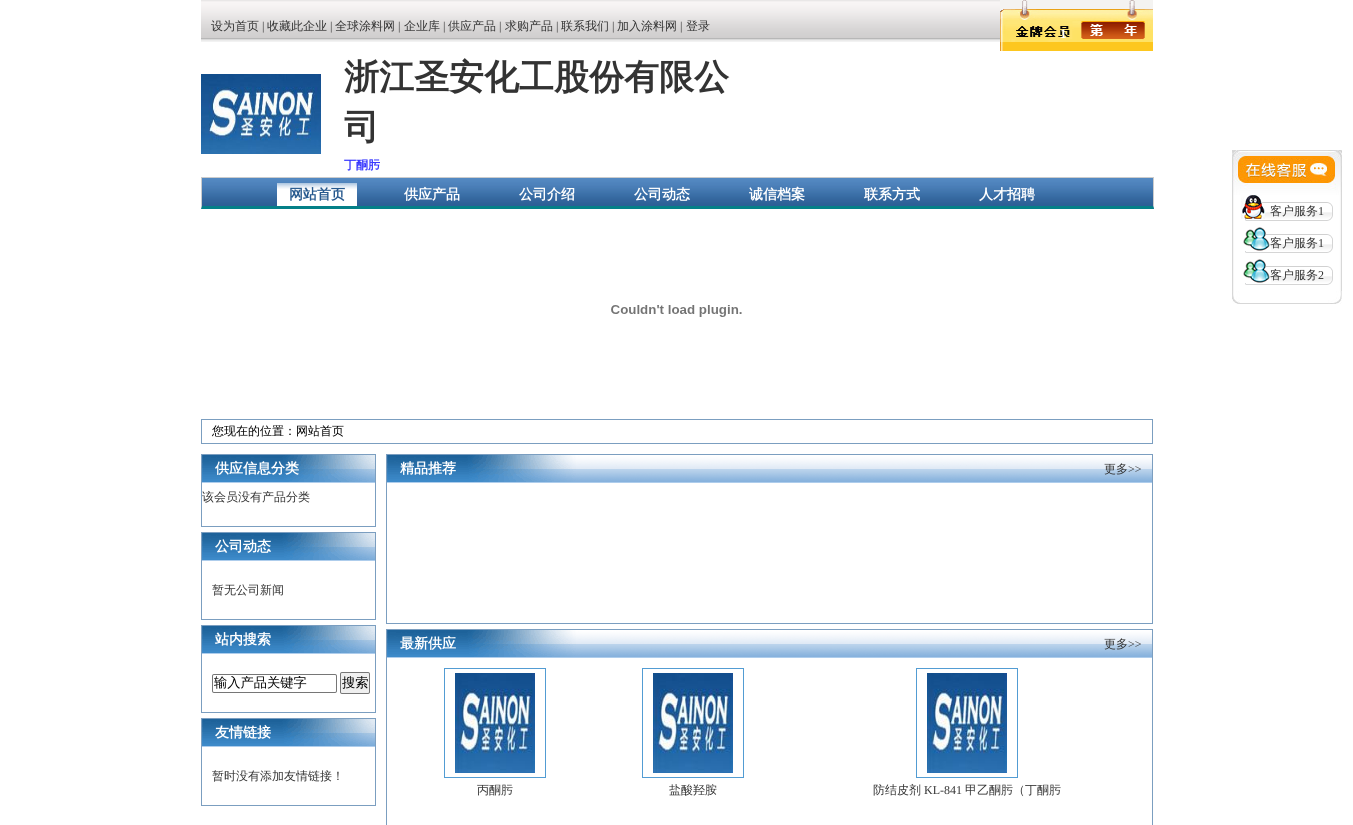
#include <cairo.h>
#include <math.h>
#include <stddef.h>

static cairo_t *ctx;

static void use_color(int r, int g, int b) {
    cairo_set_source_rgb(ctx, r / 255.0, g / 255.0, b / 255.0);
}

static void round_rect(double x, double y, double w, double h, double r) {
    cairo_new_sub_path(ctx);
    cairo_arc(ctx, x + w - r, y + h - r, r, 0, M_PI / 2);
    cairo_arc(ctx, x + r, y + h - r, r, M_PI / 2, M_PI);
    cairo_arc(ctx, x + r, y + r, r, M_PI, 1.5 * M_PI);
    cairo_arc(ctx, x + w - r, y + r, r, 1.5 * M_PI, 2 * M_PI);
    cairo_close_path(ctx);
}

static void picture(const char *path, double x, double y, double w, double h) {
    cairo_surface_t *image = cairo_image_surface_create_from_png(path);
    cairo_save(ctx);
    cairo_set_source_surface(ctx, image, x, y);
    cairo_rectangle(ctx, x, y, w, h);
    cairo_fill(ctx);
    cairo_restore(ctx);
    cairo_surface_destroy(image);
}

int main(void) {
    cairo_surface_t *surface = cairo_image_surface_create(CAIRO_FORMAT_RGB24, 1353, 825);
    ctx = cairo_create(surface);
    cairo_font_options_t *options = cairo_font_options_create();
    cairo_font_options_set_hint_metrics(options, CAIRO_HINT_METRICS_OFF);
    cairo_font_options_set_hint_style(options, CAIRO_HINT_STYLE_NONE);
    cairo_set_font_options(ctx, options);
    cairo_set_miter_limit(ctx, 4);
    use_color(255, 255, 255);
    cairo_paint(ctx);
    picture("img1.png", 201, 0, 799, 42);
    cairo_select_font_face(ctx, "WenQuanYi Zen Hei Medium", CAIRO_FONT_SLANT_NORMAL, CAIRO_FONT_WEIGHT_NORMAL);
    cairo_set_font_size(ctx, 12);
    use_color(51, 51, 51);
    cairo_move_to(ctx, 211, 30);
    cairo_show_text(ctx, "设为首页");
    cairo_select_font_face(ctx, "Liberation Serif", CAIRO_FONT_SLANT_NORMAL, CAIRO_FONT_WEIGHT_NORMAL);
    cairo_move_to(ctx, 262, 30);
    cairo_show_text(ctx, "|");
    cairo_select_font_face(ctx, "WenQuanYi Zen Hei Medium", CAIRO_FONT_SLANT_NORMAL, CAIRO_FONT_WEIGHT_NORMAL);
    cairo_move_to(ctx, 267, 30);
    cairo_show_text(ctx, "收藏此企业");
    cairo_select_font_face(ctx, "Liberation Serif", CAIRO_FONT_SLANT_NORMAL, CAIRO_FONT_WEIGHT_NORMAL);
    cairo_move_to(ctx, 330, 30);
    cairo_show_text(ctx, "|");
    cairo_select_font_face(ctx, "WenQuanYi Zen Hei Medium", CAIRO_FONT_SLANT_NORMAL, CAIRO_FONT_WEIGHT_NORMAL);
    cairo_move_to(ctx, 335, 30);
    cairo_show_text(ctx, "全球涂料网");
    cairo_select_font_face(ctx, "Liberation Serif", CAIRO_FONT_SLANT_NORMAL, CAIRO_FONT_WEIGHT_NORMAL);
    cairo_move_to(ctx, 398, 30);
    cairo_show_text(ctx, "|");
    cairo_select_font_face(ctx, "WenQuanYi Zen Hei Medium", CAIRO_FONT_SLANT_NORMAL, CAIRO_FONT_WEIGHT_NORMAL);
    cairo_move_to(ctx, 404, 30);
    cairo_show_text(ctx, "企业库");
    cairo_select_font_face(ctx, "Liberation Serif", CAIRO_FONT_SLANT_NORMAL, CAIRO_FONT_WEIGHT_NORMAL);
    cairo_move_to(ctx, 443, 30);
    cairo_show_text(ctx, "|");
    cairo_select_font_face(ctx, "WenQuanYi Zen Hei Medium", CAIRO_FONT_SLANT_NORMAL, CAIRO_FONT_WEIGHT_NORMAL);
    cairo_move_to(ctx, 448, 30);
    cairo_show_text(ctx, "供应产品");
    cairo_select_font_face(ctx, "Liberation Serif", CAIRO_FONT_SLANT_NORMAL, CAIRO_FONT_WEIGHT_NORMAL);
    cairo_move_to(ctx, 499, 30);
    cairo_show_text(ctx, "|");
    cairo_select_font_face(ctx, "WenQuanYi Zen Hei Medium", CAIRO_FONT_SLANT_NORMAL, CAIRO_FONT_WEIGHT_NORMAL);
    cairo_move_to(ctx, 505, 30);
    cairo_show_text(ctx, "求购产品");
    cairo_select_font_face(ctx, "Liberation Serif", CAIRO_FONT_SLANT_NORMAL, CAIRO_FONT_WEIGHT_NORMAL);
    cairo_move_to(ctx, 556, 30);
    cairo_show_text(ctx, "|");
    cairo_select_font_face(ctx, "WenQuanYi Zen Hei Medium", CAIRO_FONT_SLANT_NORMAL, CAIRO_FONT_WEIGHT_NORMAL);
    cairo_move_to(ctx, 561, 30);
    cairo_show_text(ctx, "联系我们");
    cairo_select_font_face(ctx, "Liberation Serif", CAIRO_FONT_SLANT_NORMAL, CAIRO_FONT_WEIGHT_NORMAL);
    cairo_move_to(ctx, 612, 30);
    cairo_show_text(ctx, "|");
    cairo_select_font_face(ctx, "WenQuanYi Zen Hei Medium", CAIRO_FONT_SLANT_NORMAL, CAIRO_FONT_WEIGHT_NORMAL);
    cairo_move_to(ctx, 617, 30);
    cairo_show_text(ctx, "加入涂料网");
    cairo_select_font_face(ctx, "Liberation Serif", CAIRO_FONT_SLANT_NORMAL, CAIRO_FONT_WEIGHT_NORMAL);
    cairo_move_to(ctx, 680, 30);
    cairo_show_text(ctx, "|");
    cairo_select_font_face(ctx, "WenQuanYi Zen Hei Medium", CAIRO_FONT_SLANT_NORMAL, CAIRO_FONT_WEIGHT_NORMAL);
    cairo_move_to(ctx, 686, 30);
    cairo_show_text(ctx, "登录");
    picture("img2.png", 1000, 0, 153, 51);
    cairo_select_font_face(ctx, "Liberation Serif", CAIRO_FONT_SLANT_NORMAL, CAIRO_FONT_WEIGHT_BOLD);
    cairo_set_font_size(ctx, 13);
    use_color(255, 255, 255);
    cairo_move_to(ctx, 1060, 38);
    cairo_show_text(ctx, "1");
    picture("img3.png", 201, 74, 120, 80);
    cairo_select_font_face(ctx, "WenQuanYi Zen Hei", CAIRO_FONT_SLANT_NORMAL, CAIRO_FONT_WEIGHT_BOLD);
    cairo_set_font_size(ctx, 35);
    use_color(51, 51, 51);
    cairo_move_to(ctx, 344, 89);
    cairo_show_text(ctx, "浙江圣安化工股份有限公");
    cairo_move_to(ctx, 344, 139);
    cairo_show_text(ctx, "司");
    cairo_set_font_size(ctx, 12);
    use_color(51, 51, 255);
    cairo_move_to(ctx, 344, 169);
    cairo_show_text(ctx, "丁酮肟");
    picture("img4.png", 201, 178, 953, 31);
    use_color(204, 204, 204);
    cairo_rectangle(ctx, 201, 177, 953, 1);
    cairo_fill(ctx);
    cairo_new_path(ctx);
    cairo_move_to(ctx, 1154, 177);
    cairo_line_to(ctx, 1154, 209);
    cairo_line_to(ctx, 1153, 206);
    cairo_line_to(ctx, 1153, 178);
    cairo_close_path(ctx);
    cairo_fill(ctx);
    use_color(4, 128, 136);
    cairo_new_path(ctx);
    cairo_move_to(ctx, 1154, 209);
    cairo_line_to(ctx, 201, 209);
    cairo_line_to(ctx, 202, 206);
    cairo_line_to(ctx, 1153, 206);
    cairo_close_path(ctx);
    cairo_fill(ctx);
    use_color(204, 204, 204);
    cairo_new_path(ctx);
    cairo_move_to(ctx, 201, 209);
    cairo_line_to(ctx, 201, 177);
    cairo_line_to(ctx, 202, 178);
    cairo_line_to(ctx, 202, 206);
    cairo_close_path(ctx);
    cairo_fill(ctx);
    picture("img5.png", 277, 183, 80, 23);
    cairo_set_font_size(ctx, 14);
    use_color(39, 89, 142);
    cairo_move_to(ctx, 289, 199);
    cairo_show_text(ctx, "网站首页");
    use_color(255, 255, 255);
    cairo_move_to(ctx, 404, 199);
    cairo_show_text(ctx, "供应产品");
    cairo_move_to(ctx, 519, 199);
    cairo_show_text(ctx, "公司介绍");
    cairo_move_to(ctx, 634, 199);
    cairo_show_text(ctx, "公司动态");
    cairo_move_to(ctx, 749, 199);
    cairo_show_text(ctx, "诚信档案");
    cairo_move_to(ctx, 864, 199);
    cairo_show_text(ctx, "联系方式");
    cairo_move_to(ctx, 979, 199);
    cairo_show_text(ctx, "人才招聘");
    picture("img6.png", 611, 305, 131, 12);
    cairo_rectangle(ctx, 201.5, 419.5, 951, 24);
    use_color(123, 158, 192);
    cairo_set_line_width(ctx, 1);
    cairo_stroke(ctx);
    cairo_select_font_face(ctx, "WenQuanYi Zen Hei Medium", CAIRO_FONT_SLANT_NORMAL, CAIRO_FONT_WEIGHT_NORMAL);
    cairo_set_font_size(ctx, 12);
    use_color(0, 0, 0);
    cairo_move_to(ctx, 212, 435);
    cairo_show_text(ctx, "您现在的位置：网站首页");
    cairo_rectangle(ctx, 201.5, 454.5, 174, 72);
    use_color(123, 158, 192);
    cairo_stroke(ctx);
    picture("img7.png", 202, 455, 173, 28);
    cairo_select_font_face(ctx, "WenQuanYi Zen Hei", CAIRO_FONT_SLANT_NORMAL, CAIRO_FONT_WEIGHT_BOLD);
    cairo_set_font_size(ctx, 14);
    use_color(255, 255, 255);
    cairo_move_to(ctx, 215, 473);
    cairo_show_text(ctx, "供应信息分类");
    cairo_select_font_face(ctx, "WenQuanYi Zen Hei Medium", CAIRO_FONT_SLANT_NORMAL, CAIRO_FONT_WEIGHT_NORMAL);
    cairo_set_font_size(ctx, 12);
    use_color(51, 51, 51);
    cairo_move_to(ctx, 202, 501);
    cairo_show_text(ctx, "该会员没有产品分类");
    cairo_rectangle(ctx, 201.5, 532.5, 174, 87);
    use_color(123, 158, 192);
    cairo_stroke(ctx);
    picture("img7.png", 202, 533, 173, 28);
    cairo_select_font_face(ctx, "WenQuanYi Zen Hei", CAIRO_FONT_SLANT_NORMAL, CAIRO_FONT_WEIGHT_BOLD);
    cairo_set_font_size(ctx, 14);
    use_color(255, 255, 255);
    cairo_move_to(ctx, 215, 551);
    cairo_show_text(ctx, "公司动态");
    cairo_select_font_face(ctx, "WenQuanYi Zen Hei Medium", CAIRO_FONT_SLANT_NORMAL, CAIRO_FONT_WEIGHT_NORMAL);
    cairo_set_font_size(ctx, 12);
    use_color(51, 51, 51);
    cairo_move_to(ctx, 212, 594);
    cairo_show_text(ctx, "暂无公司新闻");
    cairo_rectangle(ctx, 201.5, 625.5, 174, 87);
    use_color(123, 158, 192);
    cairo_stroke(ctx);
    picture("img7.png", 202, 626, 173, 28);
    cairo_select_font_face(ctx, "WenQuanYi Zen Hei", CAIRO_FONT_SLANT_NORMAL, CAIRO_FONT_WEIGHT_BOLD);
    cairo_set_font_size(ctx, 14);
    use_color(255, 255, 255);
    cairo_move_to(ctx, 215, 644);
    cairo_show_text(ctx, "站内搜索");
    round_rect(212.5, 674.5, 124, 18, 1.5);
    use_color(118, 118, 118);
    cairo_stroke(ctx);
    cairo_save(ctx);
    cairo_rectangle(ctx, 214, 676, 121, 15);
    cairo_clip(ctx);
    cairo_select_font_face(ctx, "WenQuanYi Zen Hei Medium", CAIRO_FONT_SLANT_NORMAL, CAIRO_FONT_WEIGHT_NORMAL);
    cairo_set_font_size(ctx, 13.25);
    use_color(0, 0, 0);
    cairo_move_to(ctx, 214, 687);
    cairo_show_text(ctx, "输入产品关键字");
    cairo_restore(ctx);
    use_color(239, 239, 239);
    round_rect(340.5, 672.5, 29, 21, 1.5);
    cairo_fill_preserve(ctx);
    use_color(118, 118, 118);
    cairo_stroke(ctx);
    cairo_select_font_face(ctx, "WenQuanYi Zen Hei Medium", CAIRO_FONT_SLANT_NORMAL, CAIRO_FONT_WEIGHT_NORMAL);
    cairo_set_font_size(ctx, 13.25);
    use_color(0, 0, 0);
    cairo_move_to(ctx, 342, 687);
    cairo_show_text(ctx, "搜索");
    cairo_rectangle(ctx, 201.5, 718.5, 174, 87);
    use_color(123, 158, 192);
    cairo_stroke(ctx);
    picture("img7.png", 202, 719, 173, 28);
    cairo_select_font_face(ctx, "WenQuanYi Zen Hei", CAIRO_FONT_SLANT_NORMAL, CAIRO_FONT_WEIGHT_BOLD);
    cairo_set_font_size(ctx, 14);
    use_color(255, 255, 255);
    cairo_move_to(ctx, 215, 737);
    cairo_show_text(ctx, "友情链接");
    cairo_select_font_face(ctx, "WenQuanYi Zen Hei Medium", CAIRO_FONT_SLANT_NORMAL, CAIRO_FONT_WEIGHT_NORMAL);
    cairo_set_font_size(ctx, 12);
    use_color(51, 51, 51);
    cairo_move_to(ctx, 212, 780);
    cairo_show_text(ctx, "暂时没有添加友情链接！");
    cairo_rectangle(ctx, 386.5, 454.5, 766, 169);
    use_color(123, 158, 192);
    cairo_stroke(ctx);
    picture("img8.png", 387, 455, 765, 28);
    cairo_select_font_face(ctx, "WenQuanYi Zen Hei", CAIRO_FONT_SLANT_NORMAL, CAIRO_FONT_WEIGHT_BOLD);
    cairo_set_font_size(ctx, 14);
    use_color(255, 255, 255);
    cairo_move_to(ctx, 400, 473);
    cairo_show_text(ctx, "精品推荐");
    cairo_select_font_face(ctx, "WenQuanYi Zen Hei Medium", CAIRO_FONT_SLANT_NORMAL, CAIRO_FONT_WEIGHT_NORMAL);
    cairo_set_font_size(ctx, 12);
    use_color(51, 51, 51);
    cairo_move_to(ctx, 1104, 473);
    cairo_show_text(ctx, "更多");
    cairo_select_font_face(ctx, "Liberation Serif", CAIRO_FONT_SLANT_NORMAL, CAIRO_FONT_WEIGHT_NORMAL);
    cairo_move_to(ctx, 1128, 473);
    cairo_show_text(ctx, ">>");
    cairo_rectangle(ctx, 386.5, 629.5, 766, 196);
    use_color(123, 158, 192);
    cairo_stroke(ctx);
    picture("img8.png", 387, 630, 765, 28);
    cairo_select_font_face(ctx, "WenQuanYi Zen Hei", CAIRO_FONT_SLANT_NORMAL, CAIRO_FONT_WEIGHT_BOLD);
    cairo_set_font_size(ctx, 14);
    use_color(255, 255, 255);
    cairo_move_to(ctx, 400, 648);
    cairo_show_text(ctx, "最新供应");
    cairo_select_font_face(ctx, "WenQuanYi Zen Hei Medium", CAIRO_FONT_SLANT_NORMAL, CAIRO_FONT_WEIGHT_NORMAL);
    cairo_set_font_size(ctx, 12);
    use_color(51, 51, 51);
    cairo_move_to(ctx, 1104, 648);
    cairo_show_text(ctx, "更多");
    cairo_select_font_face(ctx, "Liberation Serif", CAIRO_FONT_SLANT_NORMAL, CAIRO_FONT_WEIGHT_NORMAL);
    cairo_move_to(ctx, 1128, 648);
    cairo_show_text(ctx, ">>");
    cairo_rectangle(ctx, 444.5, 668.5, 101, 109);
    use_color(82, 156, 211);
    cairo_stroke(ctx);
    picture("img9.png", 455, 673, 80, 100);
    cairo_select_font_face(ctx, "WenQuanYi Zen Hei Medium", CAIRO_FONT_SLANT_NORMAL, CAIRO_FONT_WEIGHT_NORMAL);
    use_color(51, 51, 51);
    cairo_move_to(ctx, 477, 794);
    cairo_show_text(ctx, "丙酮肟");
    cairo_rectangle(ctx, 642.5, 668.5, 101, 109);
    use_color(82, 156, 211);
    cairo_stroke(ctx);
    picture("img9.png", 653, 673, 80, 100);
    use_color(51, 51, 51);
    cairo_move_to(ctx, 669, 794);
    cairo_show_text(ctx, "盐酸羟胺");
    cairo_rectangle(ctx, 916.5, 668.5, 101, 109);
    use_color(82, 156, 211);
    cairo_stroke(ctx);
    picture("img9.png", 927, 673, 80, 100);
    use_color(51, 51, 51);
    cairo_move_to(ctx, 873, 794);
    cairo_show_text(ctx, "防结皮剂");
    cairo_select_font_face(ctx, "Liberation Serif", CAIRO_FONT_SLANT_NORMAL, CAIRO_FONT_WEIGHT_NORMAL);
    cairo_move_to(ctx, 924, 794);
    cairo_show_text(ctx, "KL-841");
    cairo_select_font_face(ctx, "WenQuanYi Zen Hei Medium", CAIRO_FONT_SLANT_NORMAL, CAIRO_FONT_WEIGHT_NORMAL);
    cairo_move_to(ctx, 965, 794);
    cairo_show_text(ctx, "甲乙酮肟（丁酮肟");
    picture("img10.png", 1232, 150, 110, 45);
    picture("img11.png", 1232, 195, 110, 96);
    picture("img12.png", 1241, 195, 92, 26);
    cairo_move_to(ctx, 1270, 215);
    cairo_show_text(ctx, "客户服务");
    cairo_select_font_face(ctx, "Liberation Serif", CAIRO_FONT_SLANT_NORMAL, CAIRO_FONT_WEIGHT_NORMAL);
    cairo_move_to(ctx, 1318, 215);
    cairo_show_text(ctx, "1");
    picture("img13.png", 1243, 227, 90, 26);
    cairo_select_font_face(ctx, "WenQuanYi Zen Hei Medium", CAIRO_FONT_SLANT_NORMAL, CAIRO_FONT_WEIGHT_NORMAL);
    cairo_move_to(ctx, 1270, 247);
    cairo_show_text(ctx, "客户服务");
    cairo_select_font_face(ctx, "Liberation Serif", CAIRO_FONT_SLANT_NORMAL, CAIRO_FONT_WEIGHT_NORMAL);
    cairo_move_to(ctx, 1318, 247);
    cairo_show_text(ctx, "1");
    picture("img13.png", 1243, 259, 90, 26);
    cairo_select_font_face(ctx, "WenQuanYi Zen Hei Medium", CAIRO_FONT_SLANT_NORMAL, CAIRO_FONT_WEIGHT_NORMAL);
    cairo_move_to(ctx, 1270, 279);
    cairo_show_text(ctx, "客户服务");
    cairo_select_font_face(ctx, "Liberation Serif", CAIRO_FONT_SLANT_NORMAL, CAIRO_FONT_WEIGHT_NORMAL);
    cairo_move_to(ctx, 1318, 279);
    cairo_show_text(ctx, "2");
    picture("img14.png", 1232, 291, 110, 13);
    cairo_surface_write_to_png(surface, "result.png");
    cairo_font_options_destroy(options);
    cairo_destroy(ctx);
    cairo_surface_destroy(surface);
    return 0;
}
